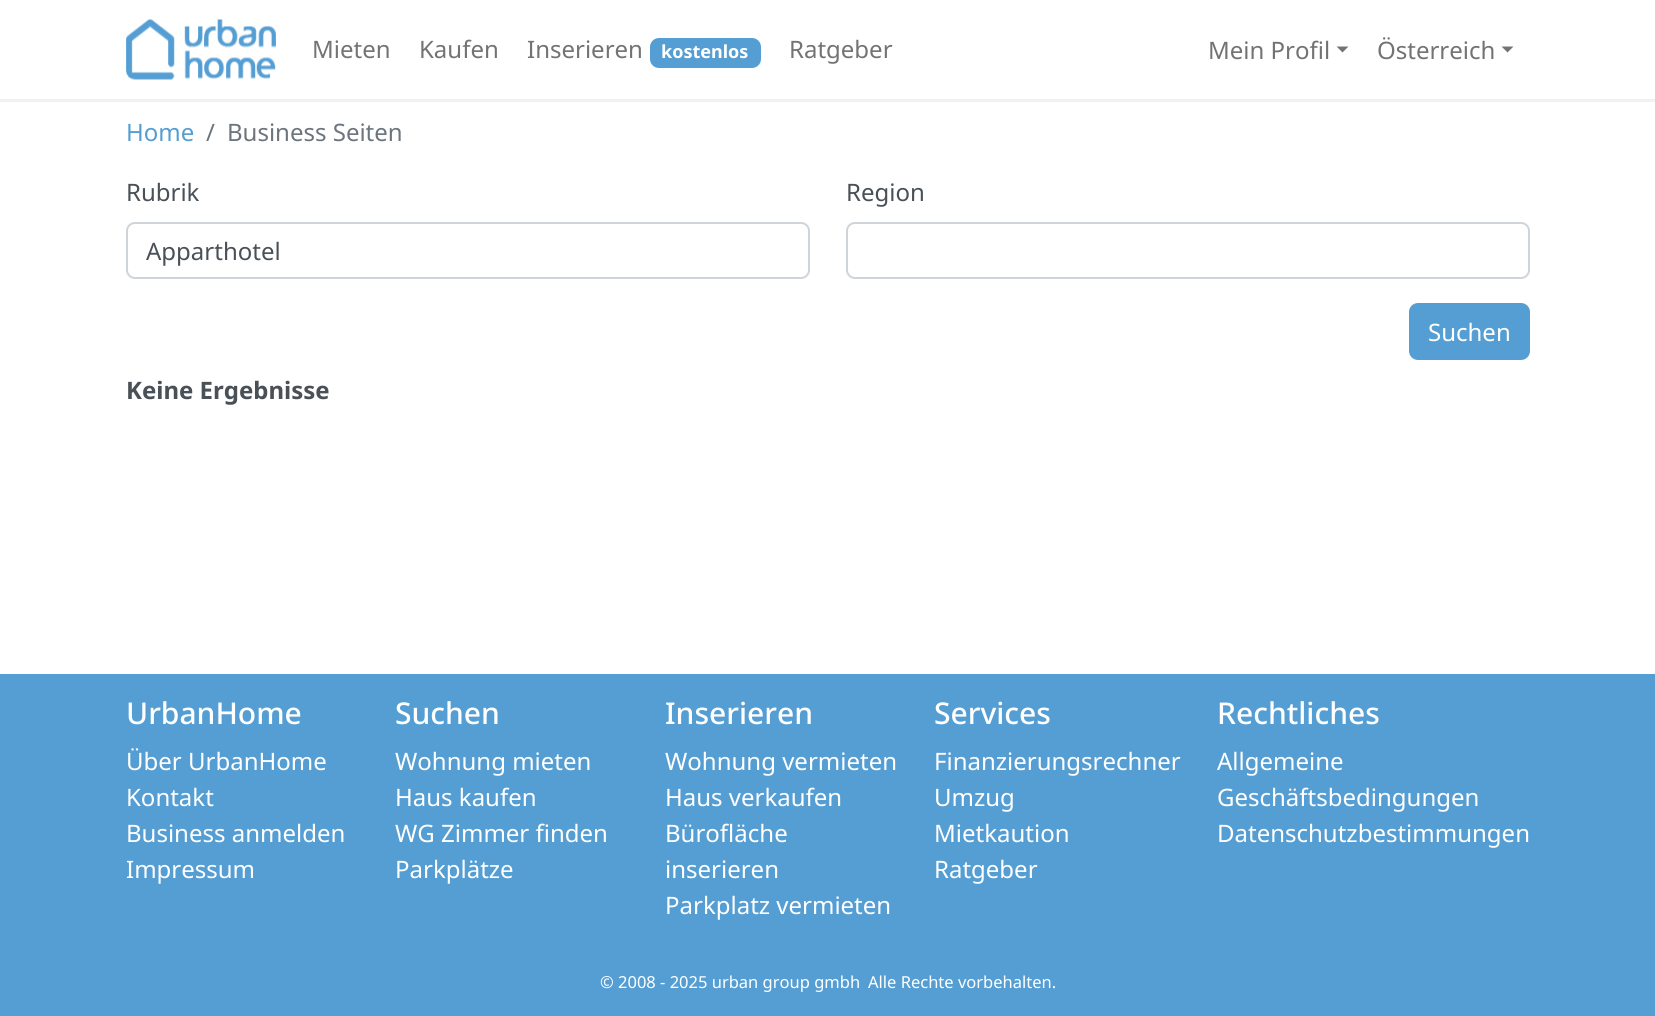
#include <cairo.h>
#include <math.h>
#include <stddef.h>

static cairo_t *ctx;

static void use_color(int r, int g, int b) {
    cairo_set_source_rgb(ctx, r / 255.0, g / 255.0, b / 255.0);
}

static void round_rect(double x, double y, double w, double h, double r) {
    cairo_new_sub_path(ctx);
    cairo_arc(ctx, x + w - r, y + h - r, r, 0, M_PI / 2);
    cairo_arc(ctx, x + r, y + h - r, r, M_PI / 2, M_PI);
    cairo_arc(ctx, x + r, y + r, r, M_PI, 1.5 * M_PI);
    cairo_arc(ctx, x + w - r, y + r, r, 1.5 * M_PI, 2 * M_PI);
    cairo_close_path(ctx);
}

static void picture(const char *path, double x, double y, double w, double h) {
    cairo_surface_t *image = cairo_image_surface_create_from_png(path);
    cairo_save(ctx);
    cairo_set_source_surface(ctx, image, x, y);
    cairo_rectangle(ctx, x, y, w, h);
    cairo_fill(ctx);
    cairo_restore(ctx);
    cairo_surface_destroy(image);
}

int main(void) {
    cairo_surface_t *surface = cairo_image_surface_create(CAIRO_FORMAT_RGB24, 1655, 1016);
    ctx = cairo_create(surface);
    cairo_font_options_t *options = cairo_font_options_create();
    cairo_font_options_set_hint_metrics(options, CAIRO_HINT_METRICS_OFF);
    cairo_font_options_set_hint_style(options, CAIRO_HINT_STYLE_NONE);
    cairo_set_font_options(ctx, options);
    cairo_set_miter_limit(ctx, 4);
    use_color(255, 255, 255);
    cairo_paint(ctx);
    use_color(241, 241, 241);
    cairo_rectangle(ctx, 0, 99, 1655, 3);
    cairo_fill(ctx);
    picture("img1.png", 126, 19, 150, 61);
    cairo_select_font_face(ctx, "Noto Sans", CAIRO_FONT_SLANT_NORMAL, CAIRO_FONT_WEIGHT_NORMAL);
    cairo_set_font_size(ctx, 24);
    use_color(115, 115, 115);
    cairo_move_to(ctx, 312, 58);
    cairo_show_text(ctx, "Mieten");
    cairo_move_to(ctx, 419, 58);
    cairo_show_text(ctx, "Kaufen");
    cairo_move_to(ctx, 527, 58);
    cairo_show_text(ctx, "Inserieren");
    use_color(85, 158, 212);
    round_rect(650, 38, 111, 30, 9);
    cairo_fill(ctx);
    cairo_select_font_face(ctx, "Noto Sans", CAIRO_FONT_SLANT_NORMAL, CAIRO_FONT_WEIGHT_BOLD);
    cairo_set_font_size(ctx, 18);
    use_color(255, 255, 255);
    cairo_move_to(ctx, 661, 58);
    cairo_show_text(ctx, "kostenlos");
    cairo_select_font_face(ctx, "Noto Sans", CAIRO_FONT_SLANT_NORMAL, CAIRO_FONT_WEIGHT_NORMAL);
    cairo_set_font_size(ctx, 24);
    use_color(115, 115, 115);
    cairo_move_to(ctx, 789, 58);
    cairo_show_text(ctx, "Ratgeber");
    cairo_move_to(ctx, 1208, 59);
    cairo_show_text(ctx, "Mein Profil");
    cairo_new_path(ctx);
    cairo_move_to(ctx, 1336.5, 46.5);
    cairo_line_to(ctx, 1348.5, 46.5);
    cairo_line_to(ctx, 1342.5, 52.5);
    cairo_close_path(ctx);
    cairo_fill(ctx);
    cairo_move_to(ctx, 1377, 59);
    cairo_show_text(ctx, "Österreich");
    cairo_new_path(ctx);
    cairo_move_to(ctx, 1501.5, 46.5);
    cairo_line_to(ctx, 1513.5, 46.5);
    cairo_line_to(ctx, 1507.5, 52.5);
    cairo_close_path(ctx);
    cairo_fill(ctx);
    use_color(85, 158, 212);
    cairo_move_to(ctx, 126, 141);
    cairo_show_text(ctx, "Home");
    use_color(108, 117, 125);
    cairo_move_to(ctx, 206, 141);
    cairo_show_text(ctx, "/");
    cairo_move_to(ctx, 227, 141);
    cairo_show_text(ctx, "Business Seiten");
    use_color(73, 80, 87);
    cairo_move_to(ctx, 126, 201);
    cairo_show_text(ctx, "Rubrik");
    round_rect(127, 223, 682, 55, 8);
    use_color(206, 212, 218);
    cairo_stroke(ctx);
    use_color(73, 80, 87);
    cairo_move_to(ctx, 146, 260);
    cairo_show_text(ctx, "Apparthotel");
    cairo_move_to(ctx, 846, 201);
    cairo_show_text(ctx, "Region");
    round_rect(847, 223, 682, 55, 8);
    use_color(206, 212, 218);
    cairo_stroke(ctx);
    use_color(85, 158, 212);
    round_rect(1410, 304, 119, 55, 8);
    cairo_fill_preserve(ctx);
    cairo_stroke(ctx);
    use_color(255, 255, 255);
    cairo_move_to(ctx, 1428, 341);
    cairo_show_text(ctx, "Suchen");
    cairo_select_font_face(ctx, "Noto Sans", CAIRO_FONT_SLANT_NORMAL, CAIRO_FONT_WEIGHT_BOLD);
    use_color(73, 80, 87);
    cairo_move_to(ctx, 126, 399);
    cairo_show_text(ctx, "Keine Ergebnisse");
    use_color(85, 158, 212);
    cairo_rectangle(ctx, 0, 674, 1655, 342);
    cairo_fill(ctx);
    cairo_select_font_face(ctx, "Noto Sans Medium", CAIRO_FONT_SLANT_NORMAL, CAIRO_FONT_WEIGHT_NORMAL);
    cairo_set_font_size(ctx, 30);
    use_color(255, 255, 255);
    cairo_move_to(ctx, 126, 724);
    cairo_show_text(ctx, "UrbanHome");
    cairo_select_font_face(ctx, "Noto Sans", CAIRO_FONT_SLANT_NORMAL, CAIRO_FONT_WEIGHT_NORMAL);
    cairo_set_font_size(ctx, 24);
    cairo_move_to(ctx, 126, 770);
    cairo_show_text(ctx, "Über UrbanHome");
    cairo_move_to(ctx, 126, 806);
    cairo_show_text(ctx, "Kontakt");
    cairo_move_to(ctx, 126, 842);
    cairo_show_text(ctx, "Business anmelden");
    cairo_move_to(ctx, 126, 878);
    cairo_show_text(ctx, "Impressum");
    cairo_select_font_face(ctx, "Noto Sans Medium", CAIRO_FONT_SLANT_NORMAL, CAIRO_FONT_WEIGHT_NORMAL);
    cairo_set_font_size(ctx, 30);
    cairo_move_to(ctx, 395, 724);
    cairo_show_text(ctx, "Suchen");
    cairo_select_font_face(ctx, "Noto Sans", CAIRO_FONT_SLANT_NORMAL, CAIRO_FONT_WEIGHT_NORMAL);
    cairo_set_font_size(ctx, 24);
    cairo_move_to(ctx, 395, 770);
    cairo_show_text(ctx, "Wohnung mieten");
    cairo_move_to(ctx, 395, 806);
    cairo_show_text(ctx, "Haus kaufen");
    cairo_move_to(ctx, 395, 842);
    cairo_show_text(ctx, "WG Zimmer finden");
    cairo_move_to(ctx, 395, 878);
    cairo_show_text(ctx, "Parkplätze");
    cairo_select_font_face(ctx, "Noto Sans Medium", CAIRO_FONT_SLANT_NORMAL, CAIRO_FONT_WEIGHT_NORMAL);
    cairo_set_font_size(ctx, 30);
    cairo_move_to(ctx, 665, 724);
    cairo_show_text(ctx, "Inserieren");
    cairo_select_font_face(ctx, "Noto Sans", CAIRO_FONT_SLANT_NORMAL, CAIRO_FONT_WEIGHT_NORMAL);
    cairo_set_font_size(ctx, 24);
    cairo_move_to(ctx, 665, 770);
    cairo_show_text(ctx, "Wohnung vermieten");
    cairo_move_to(ctx, 665, 806);
    cairo_show_text(ctx, "Haus verkaufen");
    cairo_move_to(ctx, 665, 842);
    cairo_show_text(ctx, "Bürofläche");
    cairo_move_to(ctx, 665, 878);
    cairo_show_text(ctx, "inserieren");
    cairo_move_to(ctx, 665, 914);
    cairo_show_text(ctx, "Parkplatz vermieten");
    cairo_select_font_face(ctx, "Noto Sans Medium", CAIRO_FONT_SLANT_NORMAL, CAIRO_FONT_WEIGHT_NORMAL);
    cairo_set_font_size(ctx, 30);
    cairo_move_to(ctx, 934, 724);
    cairo_show_text(ctx, "Services");
    cairo_select_font_face(ctx, "Noto Sans", CAIRO_FONT_SLANT_NORMAL, CAIRO_FONT_WEIGHT_NORMAL);
    cairo_set_font_size(ctx, 24);
    cairo_move_to(ctx, 934, 770);
    cairo_show_text(ctx, "Finanzierungsrechner");
    cairo_move_to(ctx, 934, 806);
    cairo_show_text(ctx, "Umzug");
    cairo_move_to(ctx, 934, 842);
    cairo_show_text(ctx, "Mietkaution");
    cairo_move_to(ctx, 934, 878);
    cairo_show_text(ctx, "Ratgeber");
    cairo_select_font_face(ctx, "Noto Sans Medium", CAIRO_FONT_SLANT_NORMAL, CAIRO_FONT_WEIGHT_NORMAL);
    cairo_set_font_size(ctx, 30);
    cairo_move_to(ctx, 1217, 724);
    cairo_show_text(ctx, "Rechtliches");
    cairo_select_font_face(ctx, "Noto Sans", CAIRO_FONT_SLANT_NORMAL, CAIRO_FONT_WEIGHT_NORMAL);
    cairo_set_font_size(ctx, 24);
    cairo_move_to(ctx, 1217, 770);
    cairo_show_text(ctx, "Allgemeine");
    cairo_move_to(ctx, 1217, 806);
    cairo_show_text(ctx, "Geschäftsbedingungen");
    cairo_move_to(ctx, 1217, 842);
    cairo_show_text(ctx, "Datenschutzbestimmungen");
    cairo_set_font_size(ctx, 16.5);
    cairo_move_to(ctx, 600, 988);
    cairo_show_text(ctx, "© 2008 - 2025 urban group gmbh");
    cairo_move_to(ctx, 868, 988);
    cairo_show_text(ctx, "Alle Rechte vorbehalten.");
    cairo_surface_write_to_png(surface, "result.png");
    cairo_font_options_destroy(options);
    cairo_destroy(ctx);
    cairo_surface_destroy(surface);
    return 0;
}
